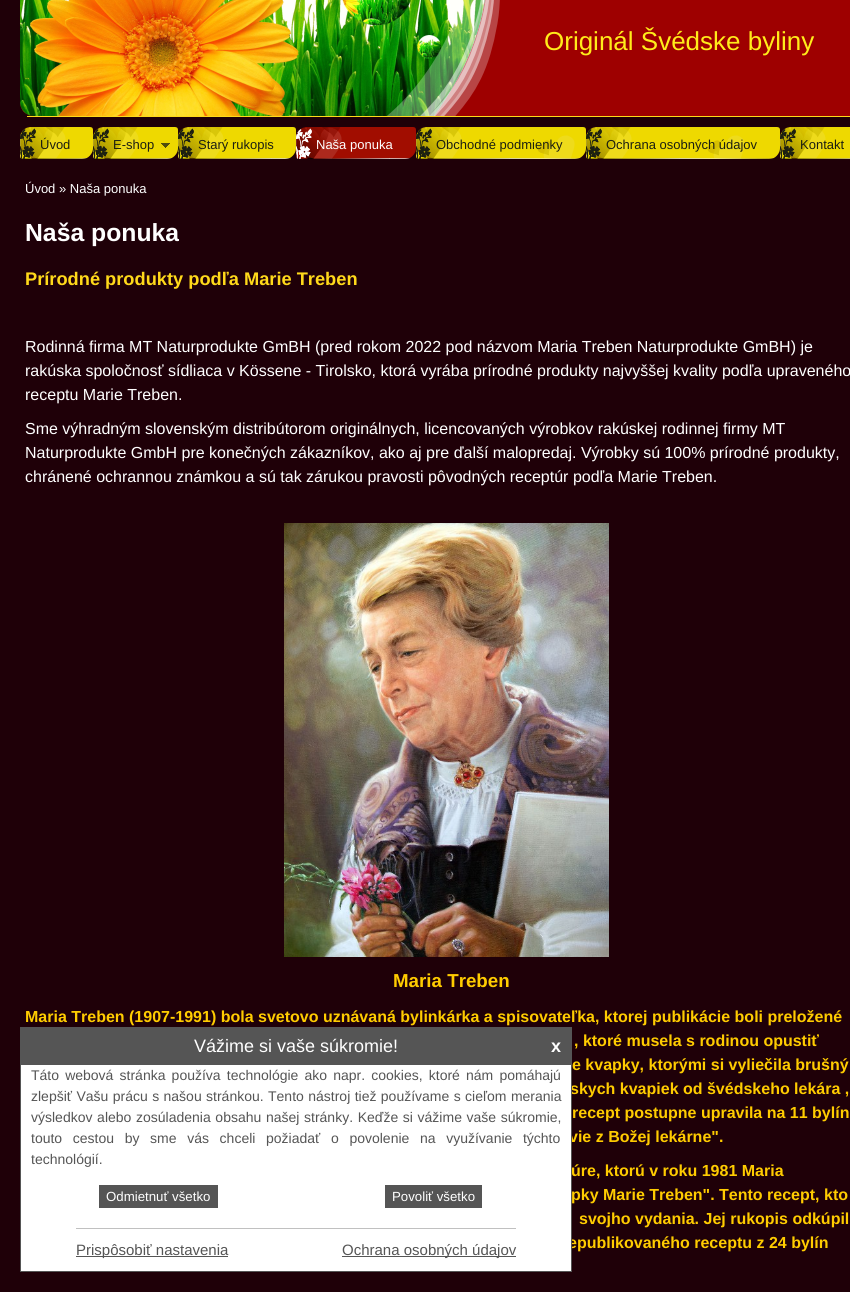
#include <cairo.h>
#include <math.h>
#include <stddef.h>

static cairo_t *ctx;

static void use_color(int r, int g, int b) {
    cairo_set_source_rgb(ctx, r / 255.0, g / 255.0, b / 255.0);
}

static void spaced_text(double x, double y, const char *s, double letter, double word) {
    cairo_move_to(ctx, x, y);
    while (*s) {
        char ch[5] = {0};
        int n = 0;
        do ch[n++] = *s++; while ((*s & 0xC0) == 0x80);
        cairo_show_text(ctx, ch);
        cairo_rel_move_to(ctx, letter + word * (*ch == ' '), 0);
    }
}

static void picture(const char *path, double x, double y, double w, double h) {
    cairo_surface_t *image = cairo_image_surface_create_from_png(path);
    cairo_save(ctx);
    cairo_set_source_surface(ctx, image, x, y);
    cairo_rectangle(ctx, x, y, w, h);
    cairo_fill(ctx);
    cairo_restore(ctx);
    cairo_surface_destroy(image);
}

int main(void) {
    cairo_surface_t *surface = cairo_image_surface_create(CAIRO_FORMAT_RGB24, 850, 1292);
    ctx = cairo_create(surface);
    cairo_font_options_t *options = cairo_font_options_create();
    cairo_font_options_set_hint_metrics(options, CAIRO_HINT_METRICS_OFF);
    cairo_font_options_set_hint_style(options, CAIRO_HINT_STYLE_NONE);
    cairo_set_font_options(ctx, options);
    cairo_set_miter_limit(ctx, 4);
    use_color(31, 0, 8);
    cairo_paint(ctx);
    use_color(255, 217, 26);
    cairo_rectangle(ctx, 27, 116, 823, 1);
    cairo_fill(ctx);
    use_color(158, 0, 0);
    cairo_new_path(ctx);
    cairo_move_to(ctx, 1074, -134);
    cairo_line_to(ctx, 34, -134);
    cairo_curve_to(ctx, 26, -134, 20, -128, 20, -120);
    cairo_line_to(ctx, 20, 102);
    cairo_curve_to(ctx, 20, 110, 26, 116, 34, 116);
    cairo_line_to(ctx, 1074, 116);
    cairo_curve_to(ctx, 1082, 116, 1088, 110, 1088, 102);
    cairo_line_to(ctx, 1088, -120);
    cairo_curve_to(ctx, 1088, -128, 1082, -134, 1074, -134);
    cairo_close_path(ctx);
    cairo_fill(ctx);
    picture("img1.png", 20, 0, 480, 116);
    cairo_select_font_face(ctx, "Liberation Sans", CAIRO_FONT_SLANT_NORMAL, CAIRO_FONT_WEIGHT_NORMAL);
    cairo_set_font_size(ctx, 26);
    use_color(255, 236, 26);
    cairo_move_to(ctx, 544, 50);
    cairo_show_text(ctx, "Originál Švédske byliny");
    picture("img2.png", 20, 127, 73, 32);
    picture("img3.png", 20, 128, 16, 31);
    cairo_set_font_size(ctx, 13);
    use_color(28, 31, 17);
    cairo_move_to(ctx, 40, 149);
    cairo_show_text(ctx, "Úvod");
    picture("img4.png", 93, 127, 85, 32);
    picture("img3.png", 93, 128, 16, 31);
    cairo_move_to(ctx, 113, 149);
    cairo_show_text(ctx, "E-shop");
    picture("img5.png", 161, 143, 9, 5);
    picture("img6.png", 178, 127, 118, 32);
    picture("img7.png", 178, 128, 16, 31);
    cairo_move_to(ctx, 198, 149);
    cairo_show_text(ctx, "Starý rukopis");
    picture("img8.png", 296, 127, 120, 32);
    picture("img9.png", 296, 128, 16, 31);
    use_color(255, 255, 255);
    cairo_move_to(ctx, 316, 149);
    cairo_show_text(ctx, "Naša ponuka");
    picture("img10.png", 416, 127, 170, 32);
    picture("img7.png", 416, 128, 16, 31);
    use_color(28, 31, 17);
    cairo_move_to(ctx, 436, 149);
    cairo_show_text(ctx, "Obchodné podmienky");
    picture("img11.png", 586, 127, 194, 32);
    picture("img7.png", 586, 128, 16, 31);
    cairo_move_to(ctx, 606, 149);
    cairo_show_text(ctx, "Ochrana osobných údajov");
    picture("img12.png", 780, 127, 70, 32);
    picture("img3.png", 780, 128, 16, 31);
    cairo_move_to(ctx, 800, 149);
    cairo_show_text(ctx, "Kontakt");
    use_color(255, 255, 255);
    cairo_move_to(ctx, 25, 193);
    cairo_show_text(ctx, "Úvod » Naša ponuka");
    cairo_select_font_face(ctx, "Liberation Sans", CAIRO_FONT_SLANT_NORMAL, CAIRO_FONT_WEIGHT_BOLD);
    cairo_set_font_size(ctx, 24.75);
    cairo_move_to(ctx, 25, 241);
    cairo_show_text(ctx, "Naša ponuka");
    cairo_set_font_size(ctx, 18.25);
    use_color(255, 217, 26);
    cairo_move_to(ctx, 25, 285);
    cairo_show_text(ctx, "Prírodné produkty podľa Marie Treben");
    cairo_select_font_face(ctx, "Liberation Sans", CAIRO_FONT_SLANT_NORMAL, CAIRO_FONT_WEIGHT_NORMAL);
    cairo_set_font_size(ctx, 16);
    use_color(255, 255, 255);
    cairo_move_to(ctx, 25, 352);
    cairo_show_text(ctx, "Rodinná firma MT Naturprodukte GmBH (pred rokom 2022 pod názvom Maria Treben Naturprodukte GmBH) je");
    cairo_move_to(ctx, 25, 376);
    cairo_show_text(ctx, "rakúska spoločnosť sídliaca v Kössene - Tirolsko, ktorá vyrába prírodné produkty najvyššej kvality podľa upraveného");
    cairo_move_to(ctx, 25, 400);
    cairo_show_text(ctx, "receptu Marie Treben.");
    cairo_move_to(ctx, 25, 434);
    cairo_show_text(ctx, "Sme výhradným slovenským distribútorom originálnych, licencovaných výrobkov rakúskej rodinnej firmy MT");
    cairo_move_to(ctx, 25, 458);
    cairo_show_text(ctx, "Naturprodukte GmbH pre konečných zákazníkov, ako aj pre ďalší malopredaj. Výrobky sú 100% prírodné produkty,");
    cairo_move_to(ctx, 25, 482);
    cairo_show_text(ctx, "chránené ochrannou známkou a sú tak zárukou pravosti pôvodných receptúr podľa Marie Treben.");
    picture("img13.png", 284, 523, 325, 434);
    cairo_select_font_face(ctx, "Liberation Sans", CAIRO_FONT_SLANT_NORMAL, CAIRO_FONT_WEIGHT_BOLD);
    cairo_set_font_size(ctx, 18.75);
    use_color(255, 204, 0);
    cairo_move_to(ctx, 393, 987);
    cairo_show_text(ctx, "Maria Treben");
    cairo_set_font_size(ctx, 16);
    cairo_move_to(ctx, 25, 1022);
    cairo_show_text(ctx, "Maria Treben (1907-1991) bola svetovo uznávaná bylinkárka a spisovateľka, ktorej publikácie boli preložené");
    cairo_move_to(ctx, 574, 1046);
    cairo_show_text(ctx, ", ktoré musela s rodinou opustiť");
    cairo_move_to(ctx, 572, 1070);
    cairo_show_text(ctx, "e kvapky, ktorými si vyliečila brušný");
    cairo_move_to(ctx, 570, 1094);
    cairo_show_text(ctx, "skych kvapiek od švédskeho lekára ,");
    cairo_move_to(ctx, 572, 1118);
    cairo_show_text(ctx, "recept postupne upravila na 11 bylín");
    cairo_move_to(ctx, 569, 1142);
    cairo_show_text(ctx, "vie z Božej lekárne\".");
    cairo_move_to(ctx, 571, 1176);
    cairo_show_text(ctx, "úre, ktorú v roku 1981 Maria");
    cairo_move_to(ctx, 571, 1200);
    cairo_show_text(ctx, "pky Marie Treben\". Tento recept, kto");
    cairo_move_to(ctx, 579, 1224);
    cairo_show_text(ctx, "svojho vydania. Jej rukopis odkúpil");
    cairo_move_to(ctx, 568, 1248);
    cairo_show_text(ctx, "epublikovaného receptu z 24 bylín");
    use_color(255, 255, 255);
    cairo_rectangle(ctx, 21, 1065, 550, 206);
    cairo_fill(ctx);
    cairo_rectangle(ctx, 20.5, 1027.5, 551, 244);
    use_color(85, 85, 85);
    cairo_set_line_width(ctx, 1);
    cairo_stroke(ctx);
    cairo_rectangle(ctx, 21, 1028, 550, 37);
    cairo_fill(ctx);
    cairo_select_font_face(ctx, "Liberation Sans", CAIRO_FONT_SLANT_NORMAL, CAIRO_FONT_WEIGHT_NORMAL);
    cairo_set_font_size(ctx, 18);
    use_color(255, 255, 255);
    cairo_move_to(ctx, 194, 1052);
    cairo_show_text(ctx, "Vážime si vaše súkromie!");
    cairo_select_font_face(ctx, "Liberation Sans", CAIRO_FONT_SLANT_NORMAL, CAIRO_FONT_WEIGHT_BOLD);
    cairo_move_to(ctx, 551, 1052);
    cairo_show_text(ctx, "x");
    cairo_select_font_face(ctx, "Liberation Sans", CAIRO_FONT_SLANT_NORMAL, CAIRO_FONT_WEIGHT_NORMAL);
    cairo_set_font_size(ctx, 14);
    use_color(85, 85, 85);
    spaced_text(31, 1080, "Táto webová stránka používa technológie ako napr. cookies, ktoré nám pomáhajú", 0, 2.25);
    spaced_text(31, 1101, "zlepšiť Vašu prácu s našou stránkou. Tento nástroj tiež používame s cieľom merania", 0, 0.5);
    spaced_text(31, 1122, "výsledkov alebo zosúladenia obsahu našej stránky. Keďže si vážime vaše súkromie,", 0, 0.75);
    spaced_text(31, 1143, "touto cestou by sme vás chceli požiadať o povolenie na využívanie týchto", 0, 6.75);
    cairo_move_to(ctx, 31, 1164);
    cairo_show_text(ctx, "technológií.");
    cairo_rectangle(ctx, 100, 1186, 117, 21);
    cairo_fill(ctx);
    cairo_rectangle(ctx, 99.5, 1185.5, 118, 22);
    cairo_stroke(ctx);
    cairo_set_font_size(ctx, 13.25);
    use_color(255, 255, 255);
    cairo_move_to(ctx, 106, 1201);
    cairo_show_text(ctx, "Odmietnuť všetko");
    use_color(85, 85, 85);
    cairo_rectangle(ctx, 386, 1186, 95, 21);
    cairo_fill(ctx);
    cairo_rectangle(ctx, 385.5, 1185.5, 96, 22);
    cairo_stroke(ctx);
    use_color(255, 255, 255);
    cairo_move_to(ctx, 392, 1201);
    cairo_show_text(ctx, "Povoliť všetko");
    use_color(192, 192, 192);
    cairo_rectangle(ctx, 76, 1228, 440, 1);
    cairo_fill(ctx);
    use_color(85, 85, 85);
    cairo_rectangle(ctx, 76, 1256, 152, 1);
    cairo_fill(ctx);
    cairo_set_font_size(ctx, 15);
    cairo_move_to(ctx, 76, 1255);
    cairo_show_text(ctx, "Prispôsobiť nastavenia");
    cairo_rectangle(ctx, 342, 1256, 174, 1);
    cairo_fill(ctx);
    cairo_move_to(ctx, 342, 1255);
    cairo_show_text(ctx, "Ochrana osobných údajov");
    cairo_surface_write_to_png(surface, "result.png");
    cairo_font_options_destroy(options);
    cairo_destroy(ctx);
    cairo_surface_destroy(surface);
    return 0;
}
